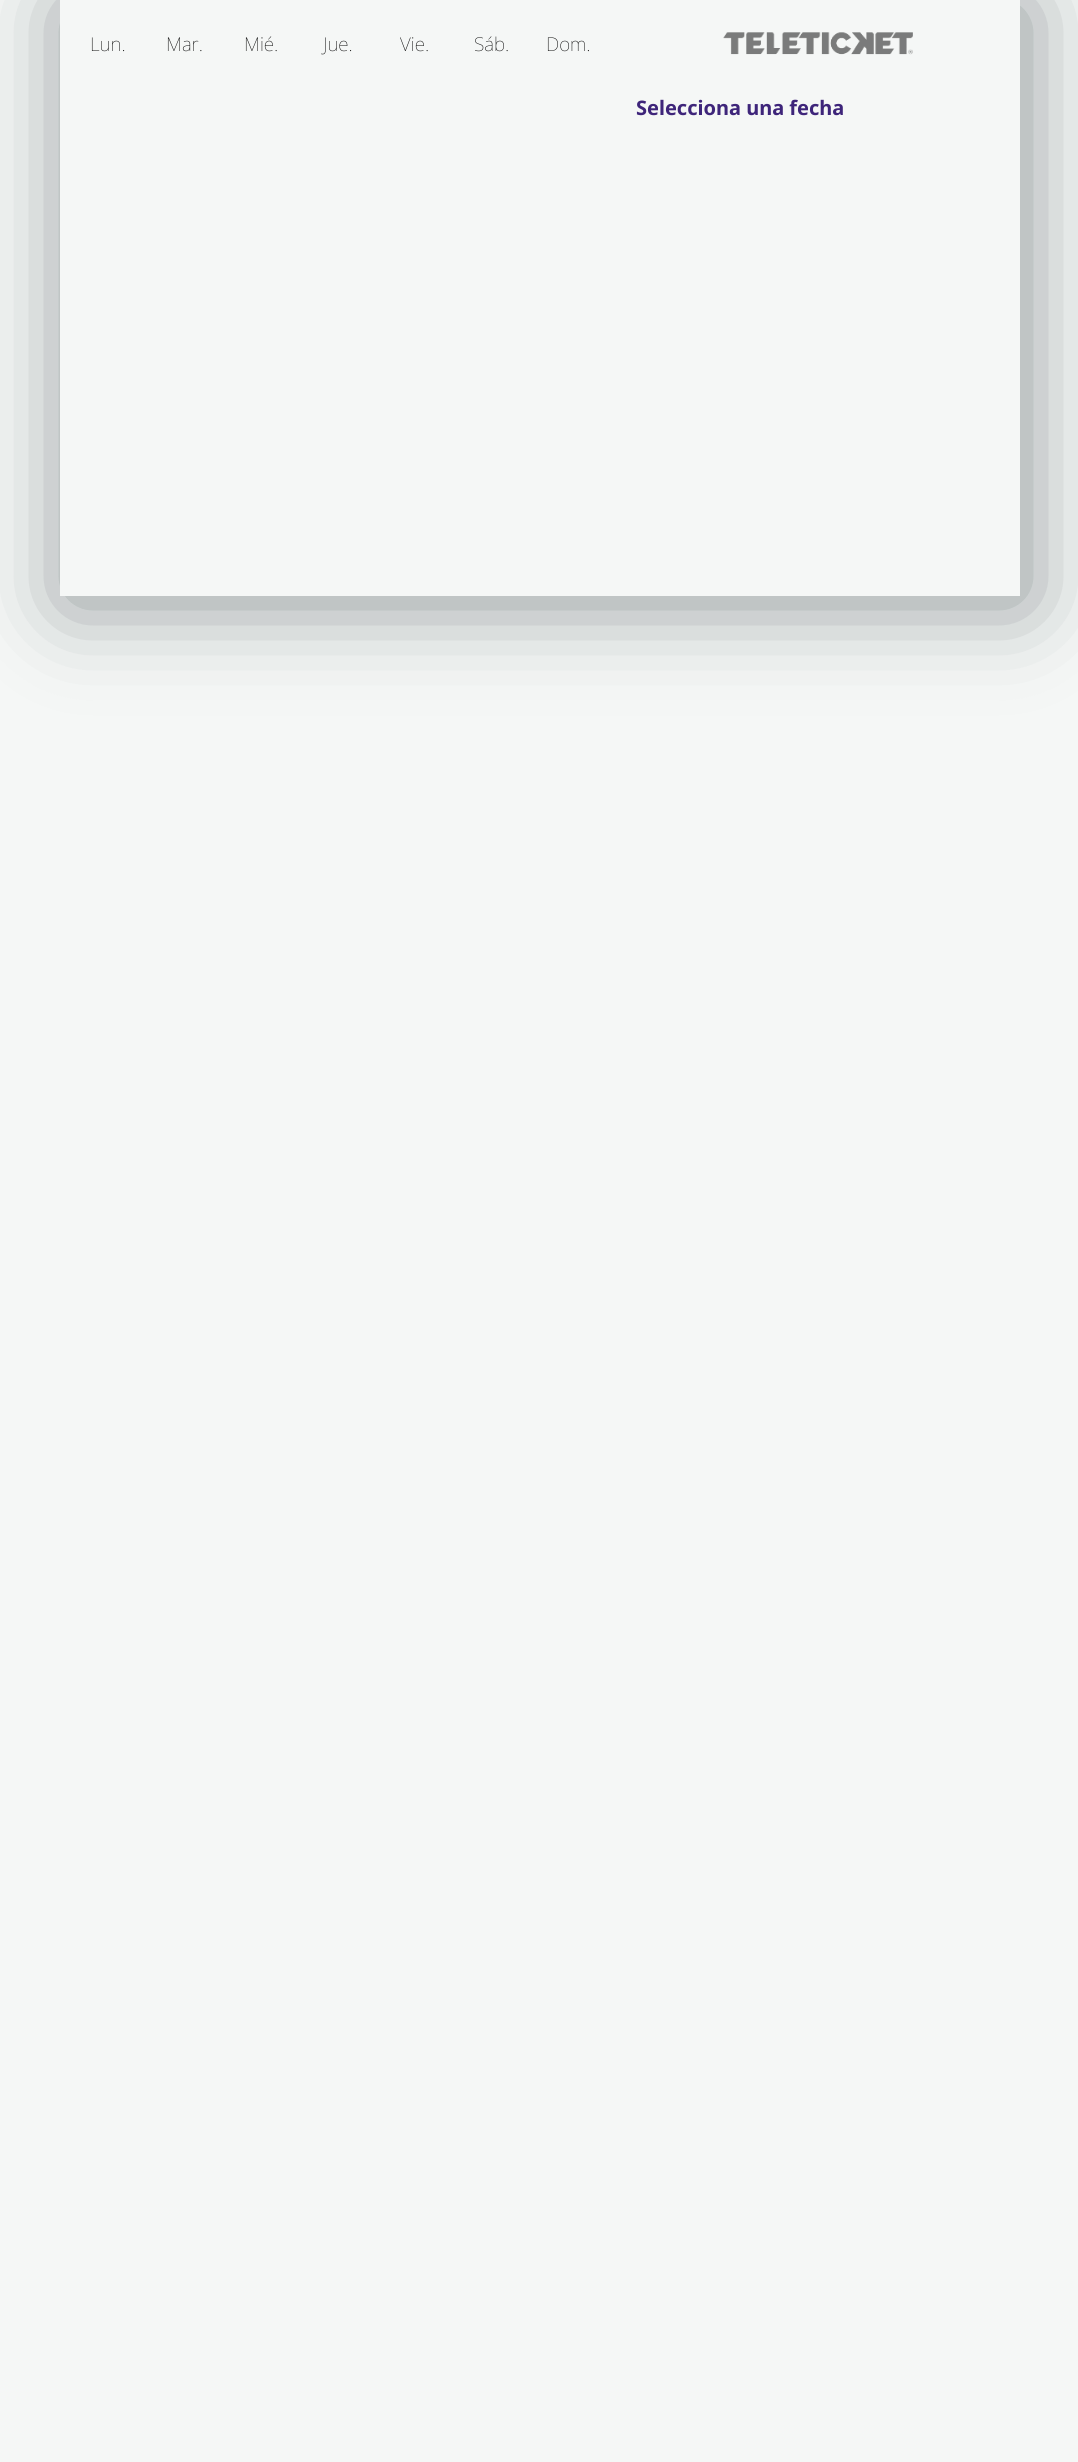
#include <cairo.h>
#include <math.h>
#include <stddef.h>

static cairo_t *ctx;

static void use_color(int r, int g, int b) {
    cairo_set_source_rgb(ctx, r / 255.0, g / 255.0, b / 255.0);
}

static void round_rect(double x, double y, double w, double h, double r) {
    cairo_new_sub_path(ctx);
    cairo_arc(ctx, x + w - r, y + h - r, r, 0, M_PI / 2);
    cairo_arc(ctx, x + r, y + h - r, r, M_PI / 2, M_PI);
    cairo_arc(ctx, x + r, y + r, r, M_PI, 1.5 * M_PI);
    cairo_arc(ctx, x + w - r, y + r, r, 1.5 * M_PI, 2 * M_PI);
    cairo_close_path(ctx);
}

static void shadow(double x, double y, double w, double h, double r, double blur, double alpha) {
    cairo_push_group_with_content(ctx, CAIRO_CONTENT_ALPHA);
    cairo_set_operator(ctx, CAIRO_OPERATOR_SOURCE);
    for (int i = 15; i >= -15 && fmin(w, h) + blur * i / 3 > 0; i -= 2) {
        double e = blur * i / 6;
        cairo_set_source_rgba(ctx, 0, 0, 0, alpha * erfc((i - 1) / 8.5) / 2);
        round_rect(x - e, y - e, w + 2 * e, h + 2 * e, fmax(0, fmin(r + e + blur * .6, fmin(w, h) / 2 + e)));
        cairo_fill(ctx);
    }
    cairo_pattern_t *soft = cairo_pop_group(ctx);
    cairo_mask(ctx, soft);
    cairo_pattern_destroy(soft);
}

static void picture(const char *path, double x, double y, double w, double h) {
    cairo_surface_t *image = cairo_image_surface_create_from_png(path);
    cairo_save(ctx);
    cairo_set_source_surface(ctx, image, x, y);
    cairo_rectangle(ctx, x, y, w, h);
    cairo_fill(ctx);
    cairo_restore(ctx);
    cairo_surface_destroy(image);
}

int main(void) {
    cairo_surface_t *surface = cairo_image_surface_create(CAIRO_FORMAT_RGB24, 1078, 2462);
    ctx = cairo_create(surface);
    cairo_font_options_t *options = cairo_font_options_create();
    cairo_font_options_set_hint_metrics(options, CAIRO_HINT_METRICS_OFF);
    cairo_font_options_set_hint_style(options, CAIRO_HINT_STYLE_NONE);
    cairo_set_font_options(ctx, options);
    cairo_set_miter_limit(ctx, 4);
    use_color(245, 247, 246);
    cairo_paint(ctx);
    cairo_save(ctx);
    cairo_set_fill_rule(ctx, CAIRO_FILL_RULE_EVEN_ODD);
    cairo_new_path(ctx);
    cairo_move_to(ctx, 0, 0);
    cairo_line_to(ctx, 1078, 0);
    cairo_line_to(ctx, 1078, 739);
    cairo_line_to(ctx, 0, 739);
    cairo_close_path(ctx);
    cairo_move_to(ctx, 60, 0);
    cairo_line_to(ctx, 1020, 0);
    cairo_line_to(ctx, 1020, 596);
    cairo_line_to(ctx, 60, 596);
    cairo_close_path(ctx);
    cairo_clip(ctx);
    use_color(30, 46, 50);
    shadow(66, 6, 960, 597, 0, 45, 0.5);
    cairo_restore(ctx);
    cairo_select_font_face(ctx, "Noto Sans Thin", CAIRO_FONT_SLANT_NORMAL, CAIRO_FONT_WEIGHT_NORMAL);
    cairo_set_font_size(ctx, 19);
    use_color(0, 0, 0);
    cairo_move_to(ctx, 90, 51);
    cairo_show_text(ctx, "Lun.");
    cairo_move_to(ctx, 166, 51);
    cairo_show_text(ctx, "Mar.");
    cairo_move_to(ctx, 244, 51);
    cairo_show_text(ctx, "Mié.");
    cairo_move_to(ctx, 323, 51);
    cairo_show_text(ctx, "Jue.");
    cairo_move_to(ctx, 400, 51);
    cairo_show_text(ctx, "Vie.");
    cairo_move_to(ctx, 474, 51);
    cairo_show_text(ctx, "Sáb.");
    cairo_move_to(ctx, 546, 51);
    cairo_show_text(ctx, "Dom.");
    picture("img1.png", 723, 32, 190, 23);
    cairo_select_font_face(ctx, "Noto Sans", CAIRO_FONT_SLANT_NORMAL, CAIRO_FONT_WEIGHT_BOLD);
    cairo_set_font_size(ctx, 20);
    use_color(62, 37, 122);
    cairo_move_to(ctx, 636, 115);
    cairo_show_text(ctx, "Selecciona una fecha");
    cairo_surface_write_to_png(surface, "result.png");
    cairo_font_options_destroy(options);
    cairo_destroy(ctx);
    cairo_surface_destroy(surface);
    return 0;
}
